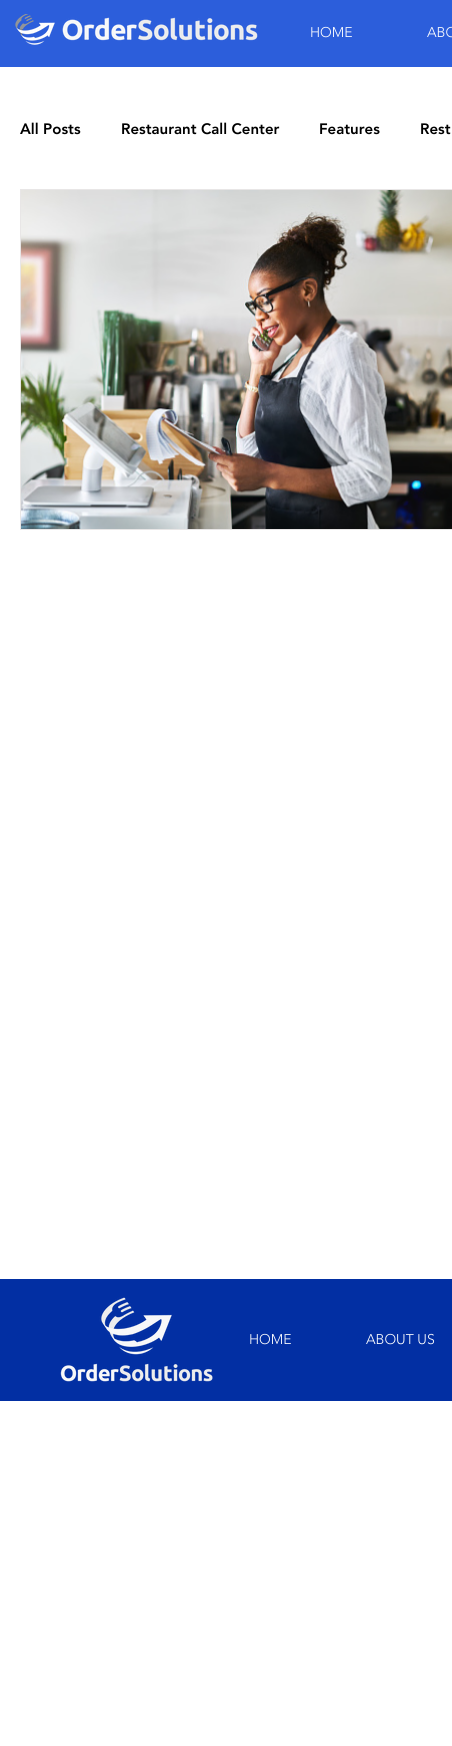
#include <cairo.h>
#include <math.h>
#include <stddef.h>

static cairo_t *ctx;

static void use_color(int r, int g, int b) {
    cairo_set_source_rgb(ctx, r / 255.0, g / 255.0, b / 255.0);
}

static void picture(const char *path, double x, double y, double w, double h) {
    cairo_surface_t *image = cairo_image_surface_create_from_png(path);
    cairo_save(ctx);
    cairo_set_source_surface(ctx, image, x, y);
    cairo_rectangle(ctx, x, y, w, h);
    cairo_fill(ctx);
    cairo_restore(ctx);
    cairo_surface_destroy(image);
}

int main(void) {
    cairo_surface_t *surface = cairo_image_surface_create(CAIRO_FORMAT_RGB24, 452, 1746);
    ctx = cairo_create(surface);
    cairo_font_options_t *options = cairo_font_options_create();
    cairo_font_options_set_hint_metrics(options, CAIRO_HINT_METRICS_OFF);
    cairo_font_options_set_hint_style(options, CAIRO_HINT_STYLE_NONE);
    cairo_set_font_options(ctx, options);
    cairo_set_miter_limit(ctx, 4);
    use_color(255, 255, 255);
    cairo_paint(ctx);
    use_color(44, 94, 219);
    cairo_rectangle(ctx, 0, 0, 452, 67);
    cairo_fill(ctx);
    picture("img1.png", 15, 14, 40, 31);
    picture("img2.png", 62, 17, 196, 24);
    cairo_select_font_face(ctx, "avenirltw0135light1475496 Light", CAIRO_FONT_SLANT_NORMAL, CAIRO_FONT_WEIGHT_NORMAL);
    cairo_set_font_size(ctx, 14);
    use_color(255, 255, 255);
    cairo_move_to(ctx, 310, 37);
    cairo_show_text(ctx, "HOME");
    cairo_move_to(ctx, 427, 37);
    cairo_show_text(ctx, "ABO");
    cairo_select_font_face(ctx, "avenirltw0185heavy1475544 Black", CAIRO_FONT_SLANT_NORMAL, CAIRO_FONT_WEIGHT_NORMAL);
    cairo_set_font_size(ctx, 15);
    use_color(0, 0, 0);
    cairo_move_to(ctx, 20, 134);
    cairo_show_text(ctx, "All Posts");
    cairo_move_to(ctx, 121, 134);
    cairo_show_text(ctx, "Restaurant Call Center");
    cairo_move_to(ctx, 319, 134);
    cairo_show_text(ctx, "Features");
    cairo_move_to(ctx, 420, 134);
    cairo_show_text(ctx, "Rest");
    cairo_rectangle(ctx, 20.5, 189.5, 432, 340);
    use_color(232, 230, 230);
    cairo_set_line_width(ctx, 1);
    cairo_stroke(ctx);
    picture("img3.png", 21, 190, 431, 339);
    use_color(2, 47, 163);
    cairo_rectangle(ctx, 0, 1279, 452, 122);
    cairo_fill(ctx);
    picture("img4.png", 60, 1297, 153, 85);
    cairo_select_font_face(ctx, "avenirltw0135light1475496 Light", CAIRO_FONT_SLANT_NORMAL, CAIRO_FONT_WEIGHT_NORMAL);
    cairo_set_font_size(ctx, 14);
    use_color(255, 255, 255);
    cairo_move_to(ctx, 249, 1344);
    cairo_show_text(ctx, "HOME");
    cairo_move_to(ctx, 366, 1344);
    cairo_show_text(ctx, "ABOUT US");
    cairo_surface_write_to_png(surface, "result.png");
    cairo_font_options_destroy(options);
    cairo_destroy(ctx);
    cairo_surface_destroy(surface);
    return 0;
}
